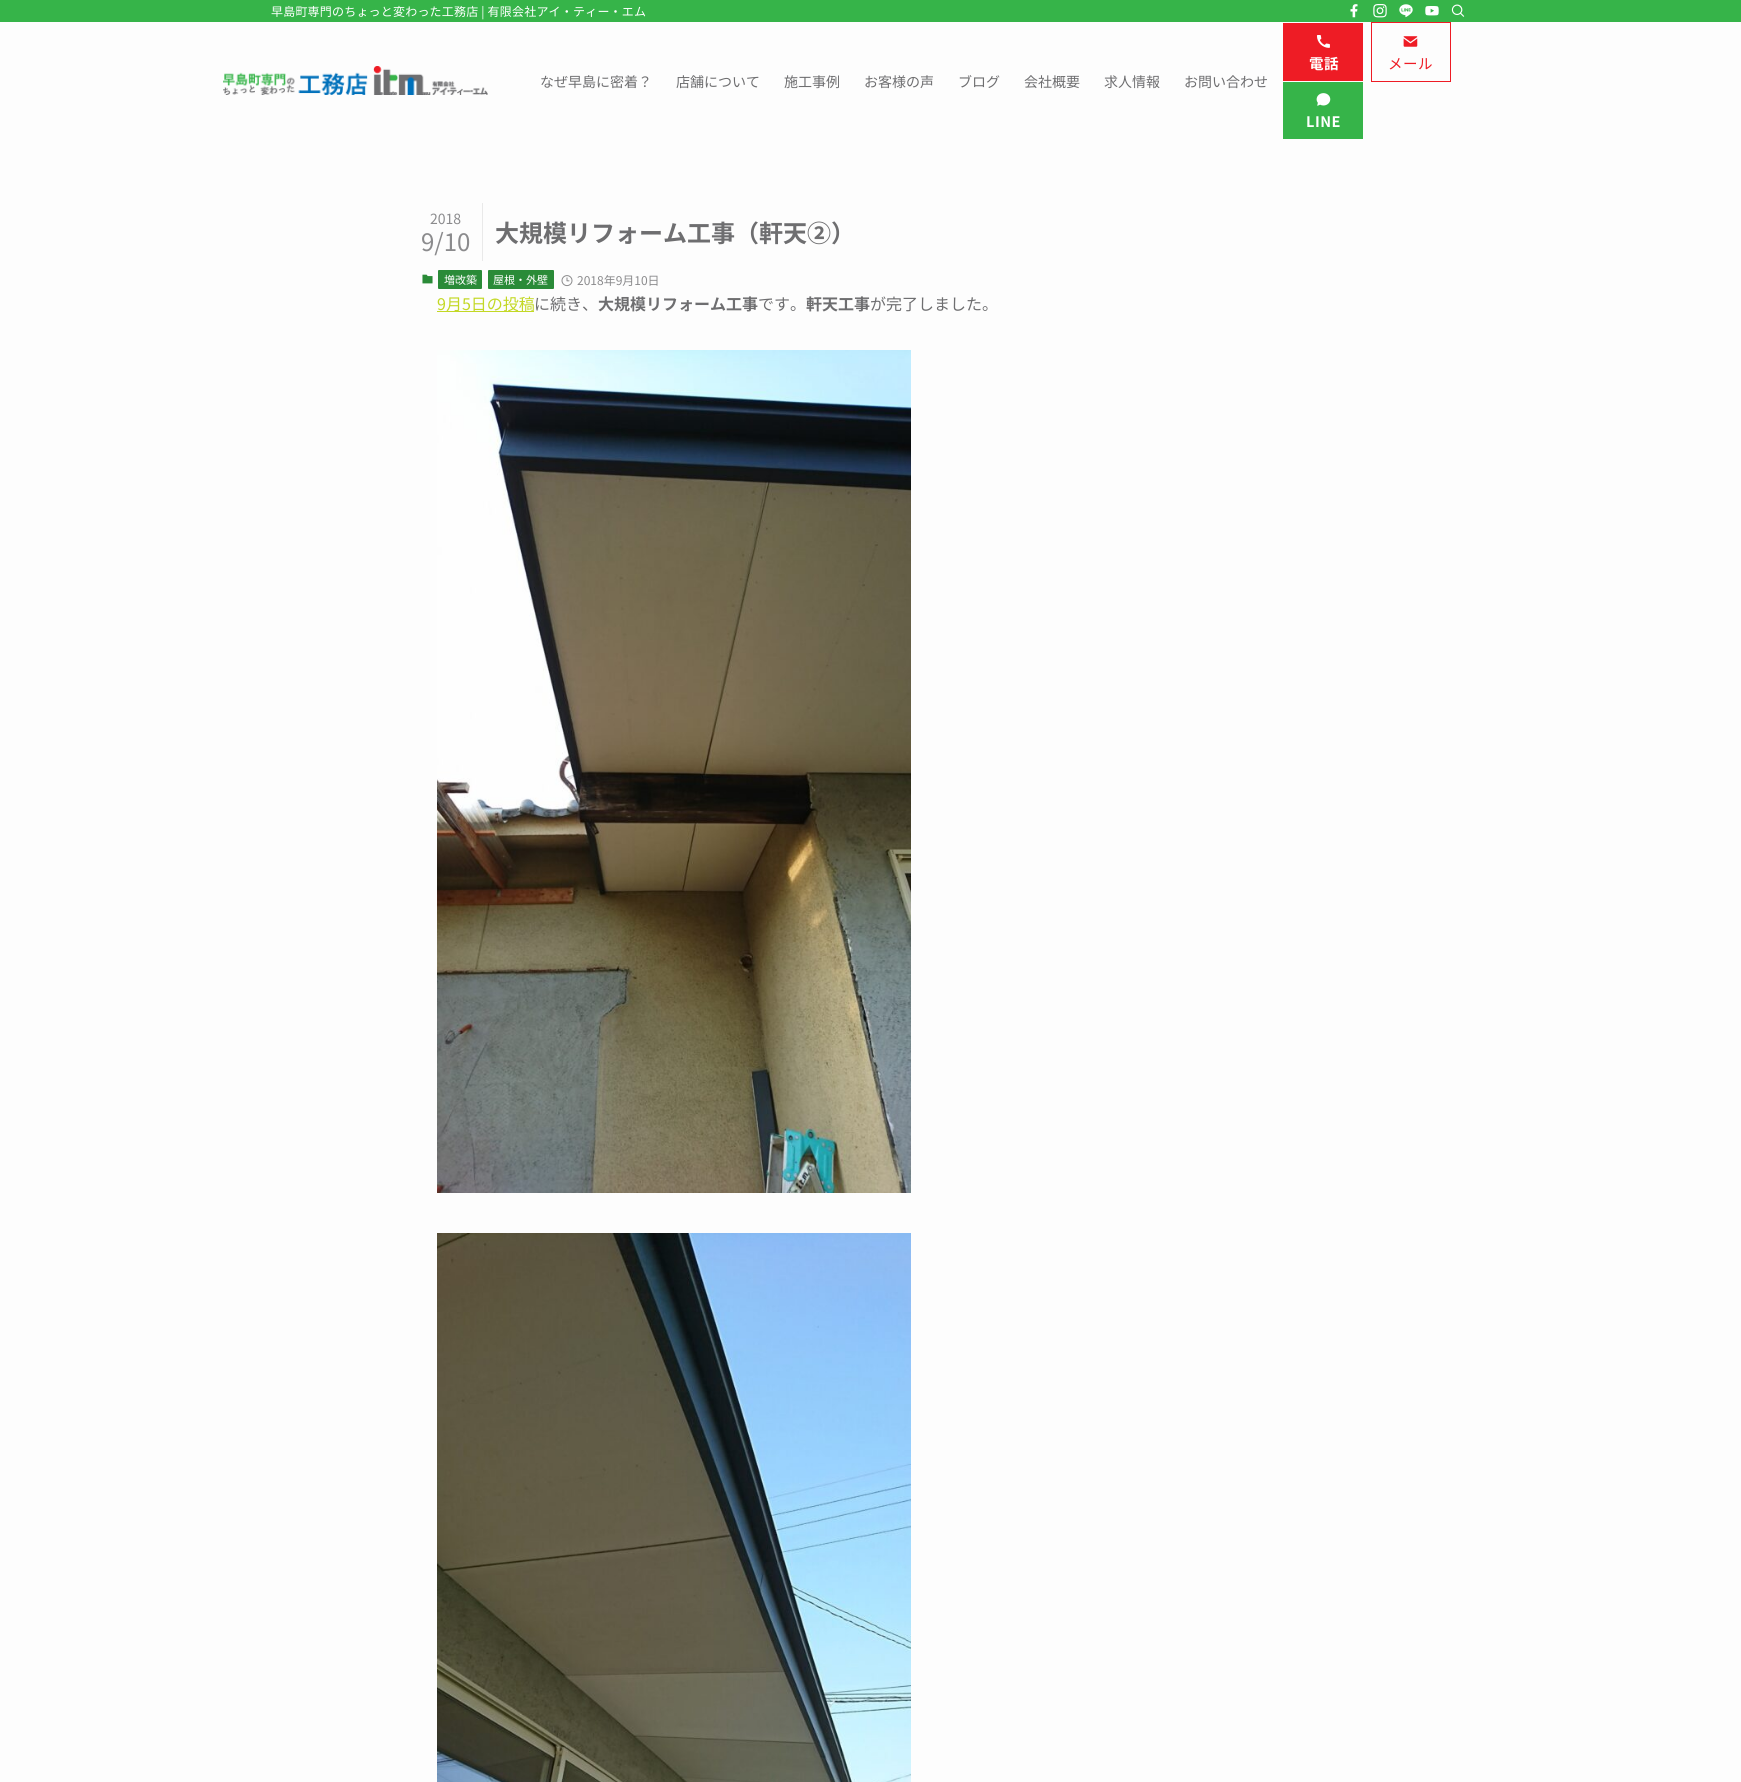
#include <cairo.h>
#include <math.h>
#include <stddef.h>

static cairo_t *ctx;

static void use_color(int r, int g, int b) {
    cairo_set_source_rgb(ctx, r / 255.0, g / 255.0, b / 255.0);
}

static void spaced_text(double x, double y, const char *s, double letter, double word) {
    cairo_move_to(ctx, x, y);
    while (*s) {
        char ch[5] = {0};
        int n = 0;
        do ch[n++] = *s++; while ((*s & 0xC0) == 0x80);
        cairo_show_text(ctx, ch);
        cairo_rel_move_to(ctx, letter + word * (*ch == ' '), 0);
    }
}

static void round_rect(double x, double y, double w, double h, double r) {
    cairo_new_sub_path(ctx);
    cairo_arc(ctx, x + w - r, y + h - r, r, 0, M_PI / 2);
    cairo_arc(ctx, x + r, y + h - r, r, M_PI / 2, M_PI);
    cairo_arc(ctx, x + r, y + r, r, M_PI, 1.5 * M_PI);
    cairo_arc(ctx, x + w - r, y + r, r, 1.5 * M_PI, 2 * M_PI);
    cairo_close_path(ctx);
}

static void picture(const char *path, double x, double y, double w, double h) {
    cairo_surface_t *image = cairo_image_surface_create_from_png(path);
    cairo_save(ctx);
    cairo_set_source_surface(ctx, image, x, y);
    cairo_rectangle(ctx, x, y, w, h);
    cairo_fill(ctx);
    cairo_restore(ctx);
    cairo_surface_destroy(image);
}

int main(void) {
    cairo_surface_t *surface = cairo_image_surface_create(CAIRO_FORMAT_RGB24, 1741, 1782);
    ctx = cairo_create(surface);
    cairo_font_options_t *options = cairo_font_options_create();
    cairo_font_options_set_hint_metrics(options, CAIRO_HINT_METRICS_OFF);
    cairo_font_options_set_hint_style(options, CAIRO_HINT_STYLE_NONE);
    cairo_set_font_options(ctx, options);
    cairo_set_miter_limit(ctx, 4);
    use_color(253, 253, 253);
    cairo_paint(ctx);
    use_color(54, 180, 73);
    cairo_rectangle(ctx, 0, 0, 1741, 22);
    cairo_fill(ctx);
    cairo_select_font_face(ctx, "Noto Sans JP", CAIRO_FONT_SLANT_NORMAL, CAIRO_FONT_WEIGHT_NORMAL);
    cairo_set_font_size(ctx, 12);
    use_color(255, 255, 255);
    spaced_text(271, 16, "早島町専門のちょっと変わった工務店 | 有限会社アイ・ティー・エム", 0.2, 0);
    picture("img1.png", 1350, 4, 8, 14);
    picture("img2.png", 1373, 4, 14, 14);
    picture("img3.png", 1399, 4, 14, 14);
    picture("img4.png", 1425, 6, 14, 10);
    picture("img5.png", 1451, 4, 14, 13);
    picture("img6.png", 223, 66, 265, 29);
    cairo_set_font_size(ctx, 14);
    use_color(110, 110, 112);
    cairo_move_to(ctx, 540, 87);
    cairo_show_text(ctx, "なぜ早島に密着？");
    cairo_move_to(ctx, 676, 87);
    cairo_show_text(ctx, "店舗について");
    cairo_move_to(ctx, 784, 87);
    cairo_show_text(ctx, "施工事例");
    cairo_move_to(ctx, 864, 87);
    cairo_show_text(ctx, "お客様の声");
    cairo_move_to(ctx, 958, 87);
    cairo_show_text(ctx, "ブログ");
    cairo_move_to(ctx, 1024, 87);
    cairo_show_text(ctx, "会社概要");
    cairo_move_to(ctx, 1104, 87);
    cairo_show_text(ctx, "求人情報");
    cairo_move_to(ctx, 1184, 87);
    cairo_show_text(ctx, "お問い合わせ");
    use_color(238, 28, 37);
    cairo_rectangle(ctx, 1283, 23, 80, 58);
    cairo_fill(ctx);
    picture("img7.png", 1316, 35, 14, 13);
    cairo_select_font_face(ctx, "Noto Sans JP", CAIRO_FONT_SLANT_NORMAL, CAIRO_FONT_WEIGHT_BOLD);
    cairo_set_font_size(ctx, 14.5);
    use_color(255, 255, 255);
    spaced_text(1309, 69, "電話", 0.5, 0);
    cairo_rectangle(ctx, 1371.5, 22.5, 79, 59);
    use_color(238, 28, 37);
    cairo_set_line_width(ctx, 1);
    cairo_stroke(ctx);
    picture("img8.png", 1403, 36, 15, 11);
    cairo_select_font_face(ctx, "Noto Sans JP", CAIRO_FONT_SLANT_NORMAL, CAIRO_FONT_WEIGHT_NORMAL);
    spaced_text(1388, 69, "メール", 0.5, 0);
    use_color(54, 180, 73);
    cairo_rectangle(ctx, 1283, 82, 80, 57);
    cairo_fill(ctx);
    picture("img9.png", 1316, 93, 15, 13);
    cairo_select_font_face(ctx, "Noto Sans JP", CAIRO_FONT_SLANT_NORMAL, CAIRO_FONT_WEIGHT_BOLD);
    use_color(255, 255, 255);
    spaced_text(1306, 127, "LINE", 0.5, 0);
    use_color(233, 233, 233);
    cairo_rectangle(ctx, 482, 203, 1, 58);
    cairo_fill(ctx);
    cairo_select_font_face(ctx, "Noto Sans JP", CAIRO_FONT_SLANT_NORMAL, CAIRO_FONT_WEIGHT_NORMAL);
    cairo_set_font_size(ctx, 14);
    use_color(139, 139, 141);
    cairo_move_to(ctx, 430, 224);
    cairo_show_text(ctx, "2018");
    cairo_set_font_size(ctx, 24);
    cairo_move_to(ctx, 421, 251);
    cairo_show_text(ctx, "9/10");
    cairo_select_font_face(ctx, "Noto Sans JP", CAIRO_FONT_SLANT_NORMAL, CAIRO_FONT_WEIGHT_BOLD);
    use_color(110, 110, 112);
    cairo_move_to(ctx, 495, 242);
    cairo_show_text(ctx, "大規模リフォーム工事（軒天②）");
    picture("img10.png", 422, 274, 11, 10);
    use_color(42, 139, 56);
    round_rect(438, 270, 44, 19, 1);
    cairo_fill(ctx);
    cairo_select_font_face(ctx, "Noto Sans JP", CAIRO_FONT_SLANT_NORMAL, CAIRO_FONT_WEIGHT_NORMAL);
    cairo_set_font_size(ctx, 11);
    use_color(255, 255, 255);
    cairo_move_to(ctx, 444, 284);
    cairo_show_text(ctx, "増改築");
    use_color(42, 139, 56);
    round_rect(488, 270, 66, 19, 1);
    cairo_fill(ctx);
    use_color(255, 255, 255);
    cairo_move_to(ctx, 493, 284);
    cairo_show_text(ctx, "屋根・外壁");
    picture("img11.png", 561, 275, 12, 12);
    cairo_set_font_size(ctx, 12);
    use_color(139, 139, 141);
    cairo_move_to(ctx, 577, 285);
    cairo_show_text(ctx, "2018年9月10日");
    use_color(195, 216, 37);
    cairo_rectangle(ctx, 437, 311, 97, 1);
    cairo_fill(ctx);
    cairo_set_font_size(ctx, 16);
    cairo_move_to(ctx, 437, 310);
    cairo_show_text(ctx, "9月5日の投稿");
    use_color(110, 110, 112);
    cairo_move_to(ctx, 534, 310);
    cairo_show_text(ctx, "に続き、");
    cairo_select_font_face(ctx, "Noto Sans JP", CAIRO_FONT_SLANT_NORMAL, CAIRO_FONT_WEIGHT_BOLD);
    cairo_move_to(ctx, 598, 310);
    cairo_show_text(ctx, "大規模リフォーム工事");
    cairo_select_font_face(ctx, "Noto Sans JP", CAIRO_FONT_SLANT_NORMAL, CAIRO_FONT_WEIGHT_NORMAL);
    cairo_move_to(ctx, 758, 310);
    cairo_show_text(ctx, "です。");
    cairo_select_font_face(ctx, "Noto Sans JP", CAIRO_FONT_SLANT_NORMAL, CAIRO_FONT_WEIGHT_BOLD);
    cairo_move_to(ctx, 806, 310);
    cairo_show_text(ctx, "軒天工事");
    cairo_select_font_face(ctx, "Noto Sans JP", CAIRO_FONT_SLANT_NORMAL, CAIRO_FONT_WEIGHT_NORMAL);
    cairo_move_to(ctx, 870, 310);
    cairo_show_text(ctx, "が完了しました。");
    picture("img12.png", 437, 350, 474, 843);
    picture("img13.png", 437, 1233, 474, 549);
    cairo_surface_write_to_png(surface, "result.png");
    cairo_font_options_destroy(options);
    cairo_destroy(ctx);
    cairo_surface_destroy(surface);
    return 0;
}
